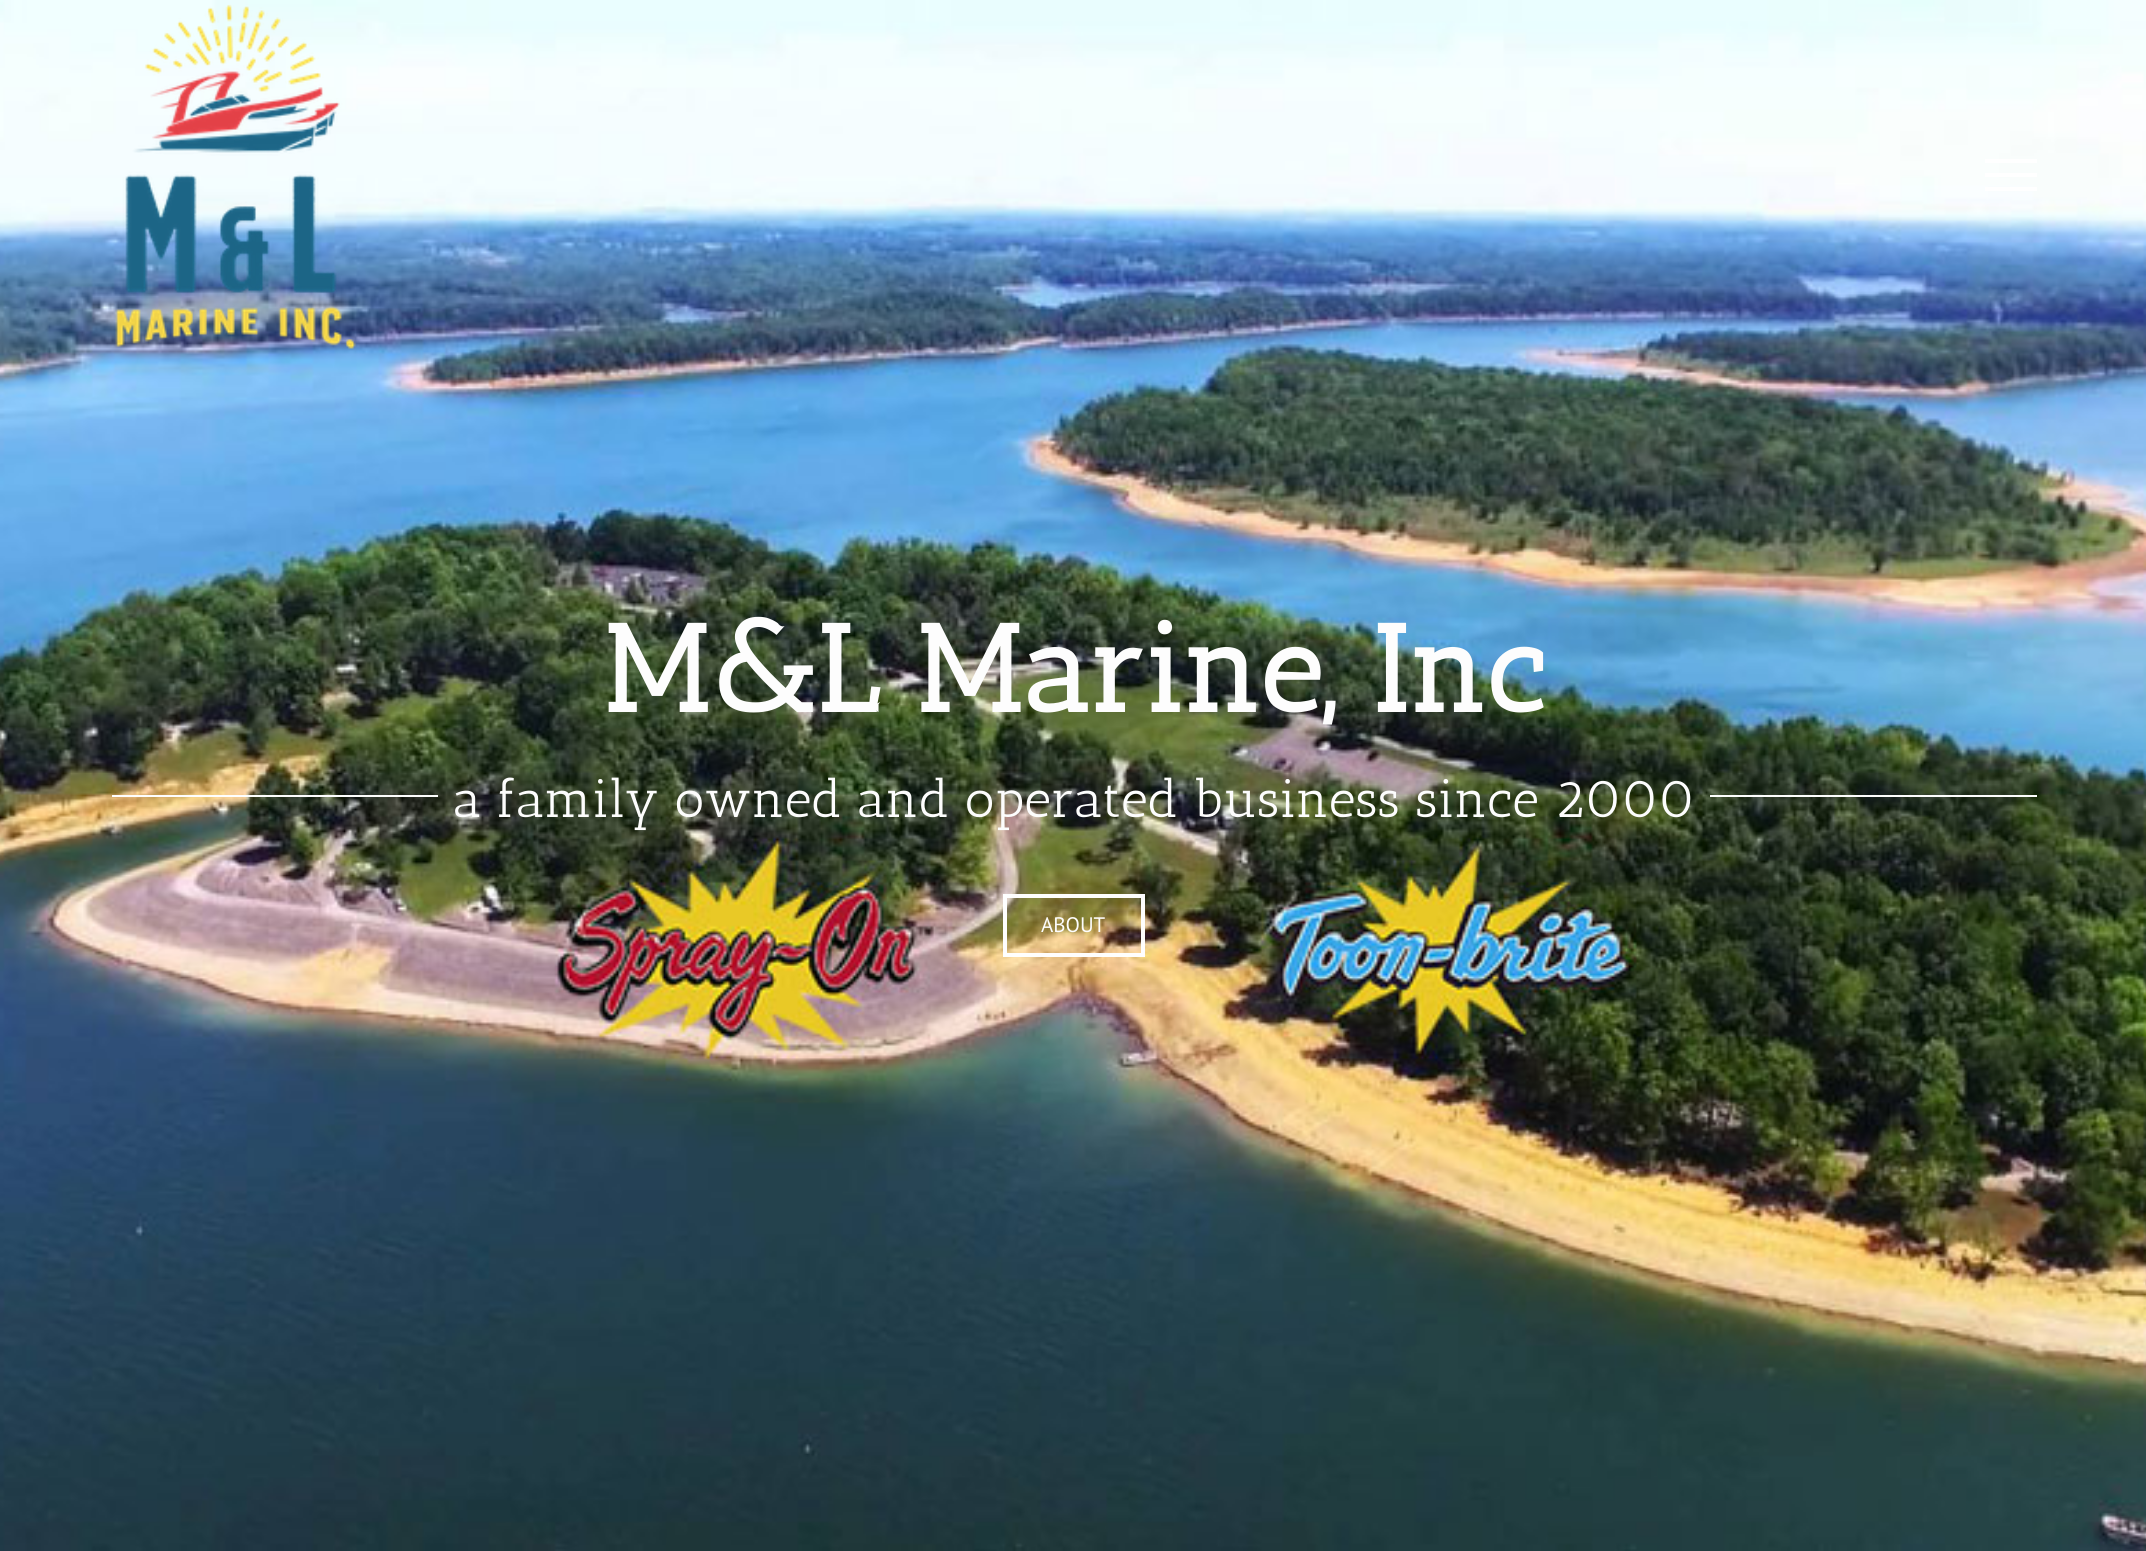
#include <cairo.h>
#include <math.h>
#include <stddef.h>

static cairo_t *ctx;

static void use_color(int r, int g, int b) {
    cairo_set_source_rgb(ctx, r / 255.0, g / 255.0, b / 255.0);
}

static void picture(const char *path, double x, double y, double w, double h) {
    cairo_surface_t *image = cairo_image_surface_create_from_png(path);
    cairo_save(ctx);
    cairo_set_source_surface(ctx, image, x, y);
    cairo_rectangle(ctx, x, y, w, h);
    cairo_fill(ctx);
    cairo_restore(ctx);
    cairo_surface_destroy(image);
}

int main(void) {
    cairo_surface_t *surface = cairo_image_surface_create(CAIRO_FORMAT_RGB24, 2146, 1551);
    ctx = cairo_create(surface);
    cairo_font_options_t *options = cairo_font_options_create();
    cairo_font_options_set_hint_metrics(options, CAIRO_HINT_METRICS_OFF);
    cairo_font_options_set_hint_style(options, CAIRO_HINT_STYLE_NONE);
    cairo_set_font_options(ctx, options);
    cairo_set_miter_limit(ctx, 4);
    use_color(255, 255, 255);
    cairo_paint(ctx);
    picture("img2.png", 0, 0, 2146, 1551);
    picture("img1.png", 115, 4, 241, 345);
    use_color(255, 255, 255);
    cairo_rectangle(ctx, 1985, 159, 52, 4);
    cairo_fill(ctx);
    cairo_rectangle(ctx, 1985, 173, 52, 4);
    cairo_fill(ctx);
    cairo_rectangle(ctx, 1985, 187, 52, 4);
    cairo_fill(ctx);
    cairo_select_font_face(ctx, "Antic Slab", CAIRO_FONT_SLANT_NORMAL, CAIRO_FONT_WEIGHT_BOLD);
    cairo_set_font_size(ctx, 122.5);
    use_color(253, 253, 253);
    cairo_move_to(ctx, 603, 712);
    cairo_show_text(ctx, "M&L Marine, Inc");
    cairo_set_source_rgba(ctx, 1, 1, 1, 0.99);
    cairo_rectangle(ctx, 112, 795, 326, 2);
    cairo_fill(ctx);
    cairo_select_font_face(ctx, "Antic Slab", CAIRO_FONT_SLANT_NORMAL, CAIRO_FONT_WEIGHT_NORMAL);
    cairo_set_font_size(ctx, 52.5);
    use_color(253, 253, 253);
    cairo_move_to(ctx, 453, 817);
    cairo_show_text(ctx, "a family owned and operated business since 2000");
    cairo_set_source_rgba(ctx, 1, 1, 1, 0.99);
    cairo_rectangle(ctx, 1710, 795, 327, 2);
    cairo_fill(ctx);
    cairo_rectangle(ctx, 1005, 896, 138, 59);
    cairo_set_line_width(ctx, 4);
    cairo_stroke(ctx);
    cairo_select_font_face(ctx, "PT Sans", CAIRO_FONT_SLANT_NORMAL, CAIRO_FONT_WEIGHT_NORMAL);
    cairo_set_font_size(ctx, 21);
    use_color(253, 253, 253);
    cairo_move_to(ctx, 1041, 932);
    cairo_show_text(ctx, "ABOUT");
    cairo_surface_write_to_png(surface, "result.png");
    cairo_font_options_destroy(options);
    cairo_destroy(ctx);
    cairo_surface_destroy(surface);
    return 0;
}
